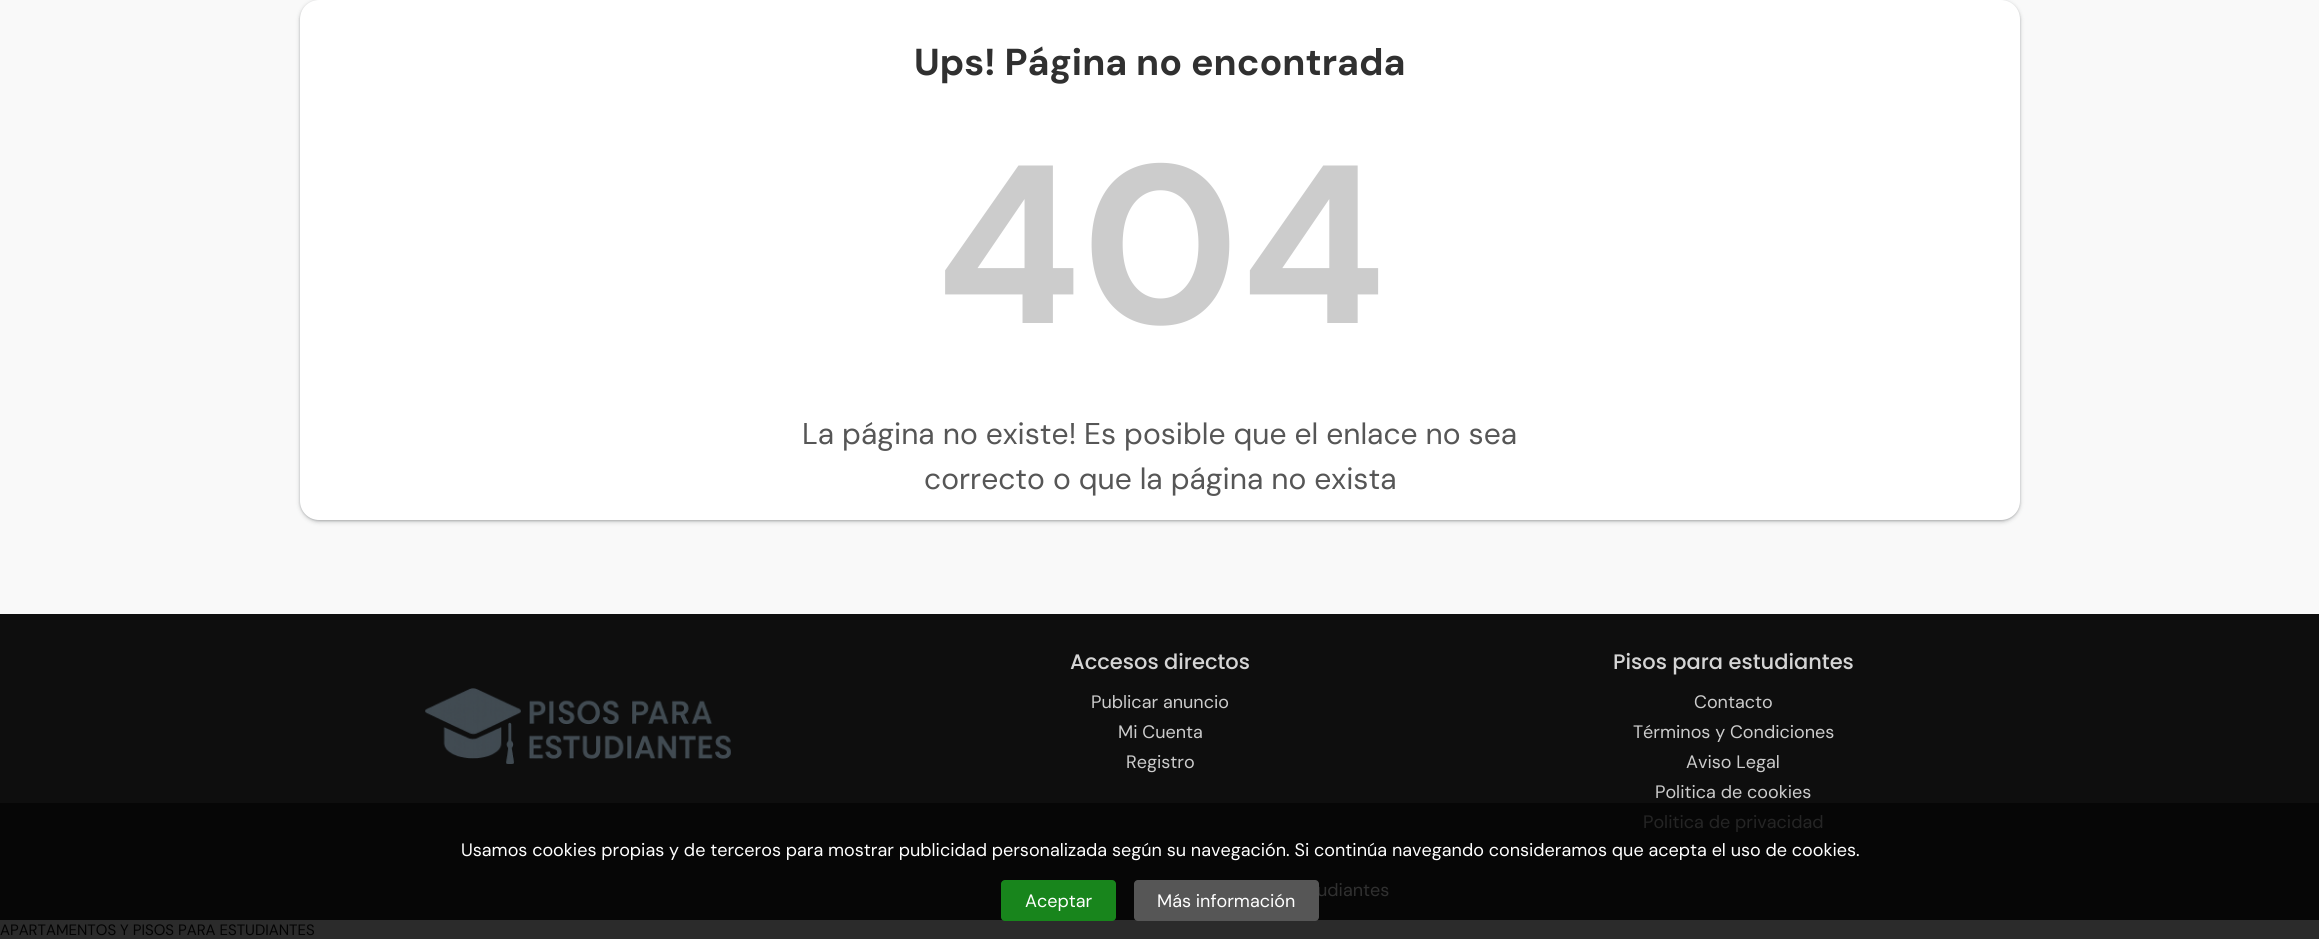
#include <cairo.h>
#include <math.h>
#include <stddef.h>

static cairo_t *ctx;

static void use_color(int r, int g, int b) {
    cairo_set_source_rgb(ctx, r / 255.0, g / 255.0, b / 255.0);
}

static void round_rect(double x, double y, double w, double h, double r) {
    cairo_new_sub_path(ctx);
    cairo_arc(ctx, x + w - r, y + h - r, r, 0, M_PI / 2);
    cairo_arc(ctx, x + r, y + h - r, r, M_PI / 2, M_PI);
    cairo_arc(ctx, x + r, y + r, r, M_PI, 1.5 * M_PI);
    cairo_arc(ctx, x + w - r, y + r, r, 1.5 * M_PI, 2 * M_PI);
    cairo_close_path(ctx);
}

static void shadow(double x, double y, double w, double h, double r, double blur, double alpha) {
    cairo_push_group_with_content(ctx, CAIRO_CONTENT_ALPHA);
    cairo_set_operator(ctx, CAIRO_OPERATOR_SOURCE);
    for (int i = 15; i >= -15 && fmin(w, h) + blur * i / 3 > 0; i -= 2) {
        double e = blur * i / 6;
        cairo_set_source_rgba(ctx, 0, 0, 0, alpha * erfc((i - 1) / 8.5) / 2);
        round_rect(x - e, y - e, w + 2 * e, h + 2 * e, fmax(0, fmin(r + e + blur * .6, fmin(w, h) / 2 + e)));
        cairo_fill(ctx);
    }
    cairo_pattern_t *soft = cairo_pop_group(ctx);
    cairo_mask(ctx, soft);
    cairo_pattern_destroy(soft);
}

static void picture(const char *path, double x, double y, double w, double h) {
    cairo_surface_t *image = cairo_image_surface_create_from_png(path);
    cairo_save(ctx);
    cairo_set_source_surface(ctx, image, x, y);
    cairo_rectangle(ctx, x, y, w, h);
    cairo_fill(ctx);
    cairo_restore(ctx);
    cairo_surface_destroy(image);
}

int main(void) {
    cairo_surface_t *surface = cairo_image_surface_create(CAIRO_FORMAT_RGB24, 2319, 939);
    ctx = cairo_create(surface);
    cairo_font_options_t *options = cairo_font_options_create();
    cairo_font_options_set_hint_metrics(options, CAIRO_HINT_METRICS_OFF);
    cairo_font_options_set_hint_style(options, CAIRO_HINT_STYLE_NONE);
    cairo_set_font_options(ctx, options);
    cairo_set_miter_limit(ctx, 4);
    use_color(249, 249, 249);
    cairo_paint(ctx);
    use_color(43, 43, 43);
    cairo_rectangle(ctx, 0, 920, 2319, 19);
    cairo_fill(ctx);
    use_color(60, 64, 67);
    shadow(299, 0, 1722, 523, 20, 2, 0.15);
    shadow(300, 1, 1720, 520, 19, 1, 0.3);
    use_color(255, 255, 255);
    round_rect(300, 0, 1720, 520, 19);
    cairo_fill(ctx);
    cairo_select_font_face(ctx, "DM Sans", CAIRO_FONT_SLANT_NORMAL, CAIRO_FONT_WEIGHT_BOLD);
    cairo_set_font_size(ctx, 37.5);
    use_color(48, 48, 48);
    cairo_move_to(ctx, 914, 75);
    cairo_show_text(ctx, "Ups! Página no encontrada");
    cairo_set_font_size(ctx, 225);
    use_color(204, 204, 204);
    cairo_move_to(ctx, 935, 323);
    cairo_show_text(ctx, "404");
    cairo_select_font_face(ctx, "DM Sans", CAIRO_FONT_SLANT_NORMAL, CAIRO_FONT_WEIGHT_NORMAL);
    cairo_set_font_size(ctx, 30);
    use_color(86, 86, 86);
    cairo_move_to(ctx, 802, 444);
    cairo_show_text(ctx, "La página no existe! Es posible que el enlace no sea");
    cairo_move_to(ctx, 924, 489);
    cairo_show_text(ctx, "correcto o que la página no exista");
    use_color(14, 14, 14);
    cairo_rectangle(ctx, 0, 614, 2319, 189);
    cairo_fill(ctx);
    use_color(6, 6, 6);
    cairo_rectangle(ctx, 0, 803, 2319, 117);
    cairo_fill(ctx);
    picture("img1.png", 425, 688, 306, 76);
    cairo_select_font_face(ctx, "Poppins Medium", CAIRO_FONT_SLANT_NORMAL, CAIRO_FONT_WEIGHT_NORMAL);
    cairo_set_font_size(ctx, 21);
    use_color(213, 213, 213);
    cairo_move_to(ctx, 1070, 669);
    cairo_show_text(ctx, "Accesos directos");
    cairo_select_font_face(ctx, "DM Sans", CAIRO_FONT_SLANT_NORMAL, CAIRO_FONT_WEIGHT_NORMAL);
    cairo_set_font_size(ctx, 18);
    use_color(204, 204, 204);
    cairo_move_to(ctx, 1091, 708);
    cairo_show_text(ctx, "Publicar anuncio");
    cairo_move_to(ctx, 1118, 738);
    cairo_show_text(ctx, "Mi Cuenta");
    cairo_move_to(ctx, 1126, 768);
    cairo_show_text(ctx, "Registro");
    cairo_select_font_face(ctx, "Poppins Medium", CAIRO_FONT_SLANT_NORMAL, CAIRO_FONT_WEIGHT_NORMAL);
    cairo_set_font_size(ctx, 21);
    use_color(213, 213, 213);
    cairo_move_to(ctx, 1613, 669);
    cairo_show_text(ctx, "Pisos para estudiantes");
    cairo_select_font_face(ctx, "DM Sans", CAIRO_FONT_SLANT_NORMAL, CAIRO_FONT_WEIGHT_NORMAL);
    cairo_set_font_size(ctx, 18);
    use_color(204, 204, 204);
    cairo_move_to(ctx, 1694, 708);
    cairo_show_text(ctx, "Contacto");
    cairo_move_to(ctx, 1633, 738);
    cairo_show_text(ctx, "Términos y Condiciones");
    cairo_move_to(ctx, 1686, 768);
    cairo_show_text(ctx, "Aviso Legal");
    cairo_move_to(ctx, 1655, 798);
    cairo_show_text(ctx, "Politica de cookies");
    use_color(37, 37, 37);
    cairo_move_to(ctx, 1643, 828);
    cairo_show_text(ctx, "Politica de privacidad");
    use_color(48, 48, 48);
    cairo_move_to(ctx, 1317, 896);
    cairo_show_text(ctx, "udiantes");
    use_color(255, 255, 255);
    cairo_move_to(ctx, 461, 856);
    cairo_show_text(ctx, "Usamos cookies propias y de terceros para mostrar publicidad personalizada según su navegación. Si continúa navegando consideramos que acepta el uso de cookies.");
    use_color(24, 133, 28);
    round_rect(1001, 880, 115, 41, 4);
    cairo_fill(ctx);
    use_color(255, 255, 255);
    cairo_move_to(ctx, 1025, 907);
    cairo_show_text(ctx, "Aceptar");
    use_color(86, 86, 86);
    round_rect(1134, 880, 185, 41, 4);
    cairo_fill(ctx);
    use_color(255, 255, 255);
    cairo_move_to(ctx, 1157, 907);
    cairo_show_text(ctx, "Más información");
    cairo_set_font_size(ctx, 15);
    use_color(3, 3, 3);
    cairo_move_to(ctx, 0, 935);
    cairo_show_text(ctx, "APARTAMENTOS Y PISOS PARA ESTUDIANTES");
    cairo_surface_write_to_png(surface, "result.png");
    cairo_font_options_destroy(options);
    cairo_destroy(ctx);
    cairo_surface_destroy(surface);
    return 0;
}
